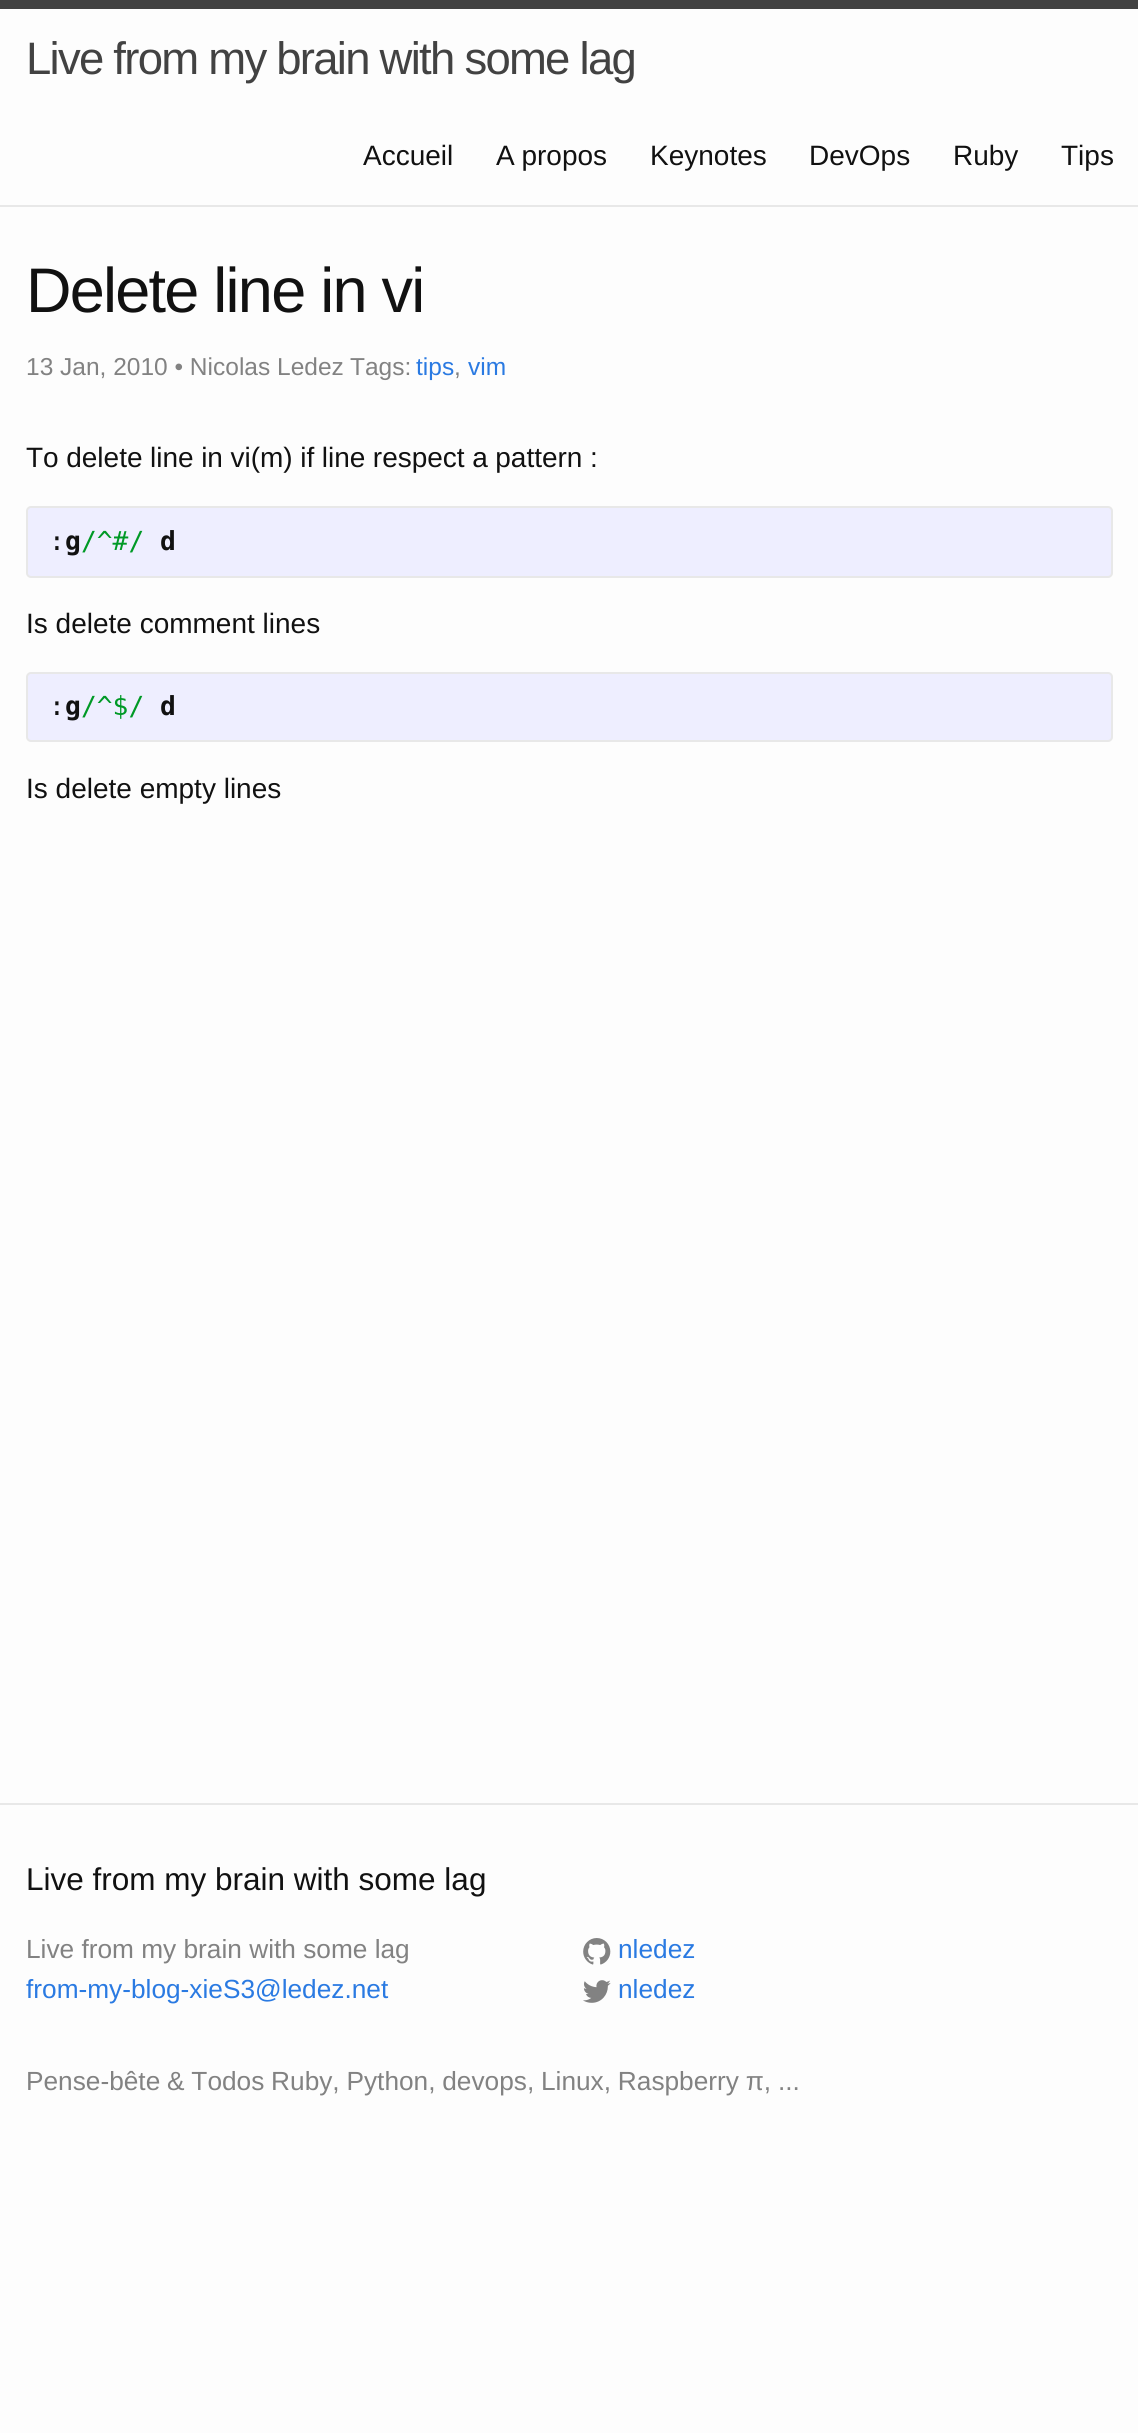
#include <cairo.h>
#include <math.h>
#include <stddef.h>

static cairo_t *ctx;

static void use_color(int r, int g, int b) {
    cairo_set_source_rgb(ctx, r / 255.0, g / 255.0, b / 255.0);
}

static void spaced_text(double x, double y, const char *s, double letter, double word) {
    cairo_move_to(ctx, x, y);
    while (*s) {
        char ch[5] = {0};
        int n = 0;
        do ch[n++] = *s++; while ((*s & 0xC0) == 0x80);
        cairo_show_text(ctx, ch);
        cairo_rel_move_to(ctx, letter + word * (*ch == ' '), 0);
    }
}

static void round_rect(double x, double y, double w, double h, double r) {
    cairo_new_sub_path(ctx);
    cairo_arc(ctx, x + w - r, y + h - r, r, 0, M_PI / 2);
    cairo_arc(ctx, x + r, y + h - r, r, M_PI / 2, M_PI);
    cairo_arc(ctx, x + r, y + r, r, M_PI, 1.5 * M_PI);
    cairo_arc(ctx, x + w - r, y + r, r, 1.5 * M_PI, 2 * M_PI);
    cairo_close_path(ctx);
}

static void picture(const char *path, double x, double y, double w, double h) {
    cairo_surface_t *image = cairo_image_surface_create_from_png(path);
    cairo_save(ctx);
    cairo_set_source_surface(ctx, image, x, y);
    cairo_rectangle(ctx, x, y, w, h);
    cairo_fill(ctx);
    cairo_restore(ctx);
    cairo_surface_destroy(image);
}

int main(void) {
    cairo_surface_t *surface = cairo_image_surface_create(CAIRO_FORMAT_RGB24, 1138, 2433);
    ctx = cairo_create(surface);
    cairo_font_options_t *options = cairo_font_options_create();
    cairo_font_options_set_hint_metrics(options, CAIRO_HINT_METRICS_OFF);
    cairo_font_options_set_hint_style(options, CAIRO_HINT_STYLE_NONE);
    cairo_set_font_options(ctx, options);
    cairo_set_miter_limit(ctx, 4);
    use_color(253, 253, 253);
    cairo_paint(ctx);
    use_color(66, 66, 66);
    cairo_rectangle(ctx, 0, 0, 1138, 9);
    cairo_fill(ctx);
    use_color(232, 232, 232);
    cairo_rectangle(ctx, 0, 205, 1138, 2);
    cairo_fill(ctx);
    cairo_select_font_face(ctx, "Liberation Sans", CAIRO_FONT_SLANT_NORMAL, CAIRO_FONT_WEIGHT_NORMAL);
    cairo_set_font_size(ctx, 45.5);
    use_color(66, 66, 66);
    spaced_text(26, 74, "Live from my brain with some lag", -1.75, 0);
    cairo_set_font_size(ctx, 28);
    use_color(17, 17, 17);
    cairo_move_to(ctx, 363, 165);
    cairo_show_text(ctx, "Accueil");
    spaced_text(496, 165, "A propos", 0, -1);
    cairo_move_to(ctx, 650, 165);
    cairo_show_text(ctx, "Keynotes");
    cairo_move_to(ctx, 809, 165);
    cairo_show_text(ctx, "DevOps");
    cairo_move_to(ctx, 953, 165);
    cairo_show_text(ctx, "Ruby");
    cairo_move_to(ctx, 1061, 165);
    cairo_show_text(ctx, "Tips");
    cairo_set_font_size(ctx, 63);
    spaced_text(26, 312, "Delete line in vi", -1.75, 0);
    cairo_set_font_size(ctx, 24.5);
    use_color(130, 130, 130);
    cairo_move_to(ctx, 26, 375);
    cairo_show_text(ctx, "13 Jan, 2010 • Nicolas Ledez");
    cairo_move_to(ctx, 350, 375);
    cairo_show_text(ctx, "Tags:");
    use_color(42, 122, 226);
    cairo_move_to(ctx, 416, 375);
    cairo_show_text(ctx, "tips");
    use_color(130, 130, 130);
    cairo_move_to(ctx, 454, 375);
    cairo_show_text(ctx, ",");
    use_color(42, 122, 226);
    cairo_move_to(ctx, 468, 375);
    cairo_show_text(ctx, "vim");
    cairo_set_font_size(ctx, 28);
    use_color(17, 17, 17);
    spaced_text(26, 467, "To delete line in vi(m) if line respect a pattern :", 0, -0.25);
    use_color(238, 238, 255);
    round_rect(27, 507, 1085, 70, 4);
    cairo_fill_preserve(ctx);
    use_color(232, 232, 232);
    cairo_stroke(ctx);
    cairo_select_font_face(ctx, "DejaVu Sans Mono", CAIRO_FONT_SLANT_NORMAL, CAIRO_FONT_WEIGHT_NORMAL);
    cairo_set_font_size(ctx, 26.25);
    use_color(17, 17, 17);
    cairo_move_to(ctx, 49, 550);
    cairo_show_text(ctx, ":");
    cairo_select_font_face(ctx, "DejaVu Sans Mono", CAIRO_FONT_SLANT_NORMAL, CAIRO_FONT_WEIGHT_BOLD);
    cairo_move_to(ctx, 65, 550);
    cairo_show_text(ctx, "g");
    cairo_select_font_face(ctx, "DejaVu Sans Mono", CAIRO_FONT_SLANT_NORMAL, CAIRO_FONT_WEIGHT_NORMAL);
    use_color(0, 153, 38);
    cairo_move_to(ctx, 81, 550);
    cairo_show_text(ctx, "/^#/");
    cairo_select_font_face(ctx, "DejaVu Sans Mono", CAIRO_FONT_SLANT_NORMAL, CAIRO_FONT_WEIGHT_BOLD);
    use_color(17, 17, 17);
    cairo_move_to(ctx, 160, 550);
    cairo_show_text(ctx, "d");
    cairo_select_font_face(ctx, "Liberation Sans", CAIRO_FONT_SLANT_NORMAL, CAIRO_FONT_WEIGHT_NORMAL);
    cairo_set_font_size(ctx, 28);
    cairo_move_to(ctx, 26, 633);
    cairo_show_text(ctx, "Is delete comment lines");
    use_color(238, 238, 255);
    round_rect(27, 673, 1085, 68, 4);
    cairo_fill_preserve(ctx);
    use_color(232, 232, 232);
    cairo_stroke(ctx);
    cairo_select_font_face(ctx, "DejaVu Sans Mono", CAIRO_FONT_SLANT_NORMAL, CAIRO_FONT_WEIGHT_NORMAL);
    cairo_set_font_size(ctx, 26.25);
    use_color(17, 17, 17);
    cairo_move_to(ctx, 49, 715);
    cairo_show_text(ctx, ":");
    cairo_select_font_face(ctx, "DejaVu Sans Mono", CAIRO_FONT_SLANT_NORMAL, CAIRO_FONT_WEIGHT_BOLD);
    cairo_move_to(ctx, 65, 715);
    cairo_show_text(ctx, "g");
    cairo_select_font_face(ctx, "DejaVu Sans Mono", CAIRO_FONT_SLANT_NORMAL, CAIRO_FONT_WEIGHT_NORMAL);
    use_color(0, 153, 38);
    cairo_move_to(ctx, 81, 715);
    cairo_show_text(ctx, "/^$/");
    cairo_select_font_face(ctx, "DejaVu Sans Mono", CAIRO_FONT_SLANT_NORMAL, CAIRO_FONT_WEIGHT_BOLD);
    use_color(17, 17, 17);
    cairo_move_to(ctx, 160, 715);
    cairo_show_text(ctx, "d");
    cairo_select_font_face(ctx, "Liberation Sans", CAIRO_FONT_SLANT_NORMAL, CAIRO_FONT_WEIGHT_NORMAL);
    cairo_set_font_size(ctx, 28);
    cairo_move_to(ctx, 26, 798);
    cairo_show_text(ctx, "Is delete empty lines");
    use_color(232, 232, 232);
    cairo_rectangle(ctx, 0, 1803, 1138, 2);
    cairo_fill(ctx);
    cairo_set_font_size(ctx, 31.5);
    use_color(17, 17, 17);
    cairo_move_to(ctx, 26, 1890);
    cairo_show_text(ctx, "Live from my brain with some lag");
    cairo_set_font_size(ctx, 26.25);
    use_color(130, 130, 130);
    cairo_move_to(ctx, 26, 1958);
    cairo_show_text(ctx, "Live from my brain with some lag");
    use_color(42, 122, 226);
    cairo_move_to(ctx, 26, 1998);
    cairo_show_text(ctx, "from-my-blog-xieS3@ledez.net");
    picture("img1.png", 583, 1938, 28, 27);
    cairo_move_to(ctx, 618, 1958);
    cairo_show_text(ctx, "nledez");
    picture("img2.png", 583, 1980, 28, 23);
    cairo_move_to(ctx, 618, 1998);
    cairo_show_text(ctx, "nledez");
    use_color(130, 130, 130);
    spaced_text(26, 2090, "Pense-bête & Todos Ruby, Python, devops, Linux, Raspberry π, ...", 0, -0.5);
    cairo_surface_write_to_png(surface, "result.png");
    cairo_font_options_destroy(options);
    cairo_destroy(ctx);
    cairo_surface_destroy(surface);
    return 0;
}
